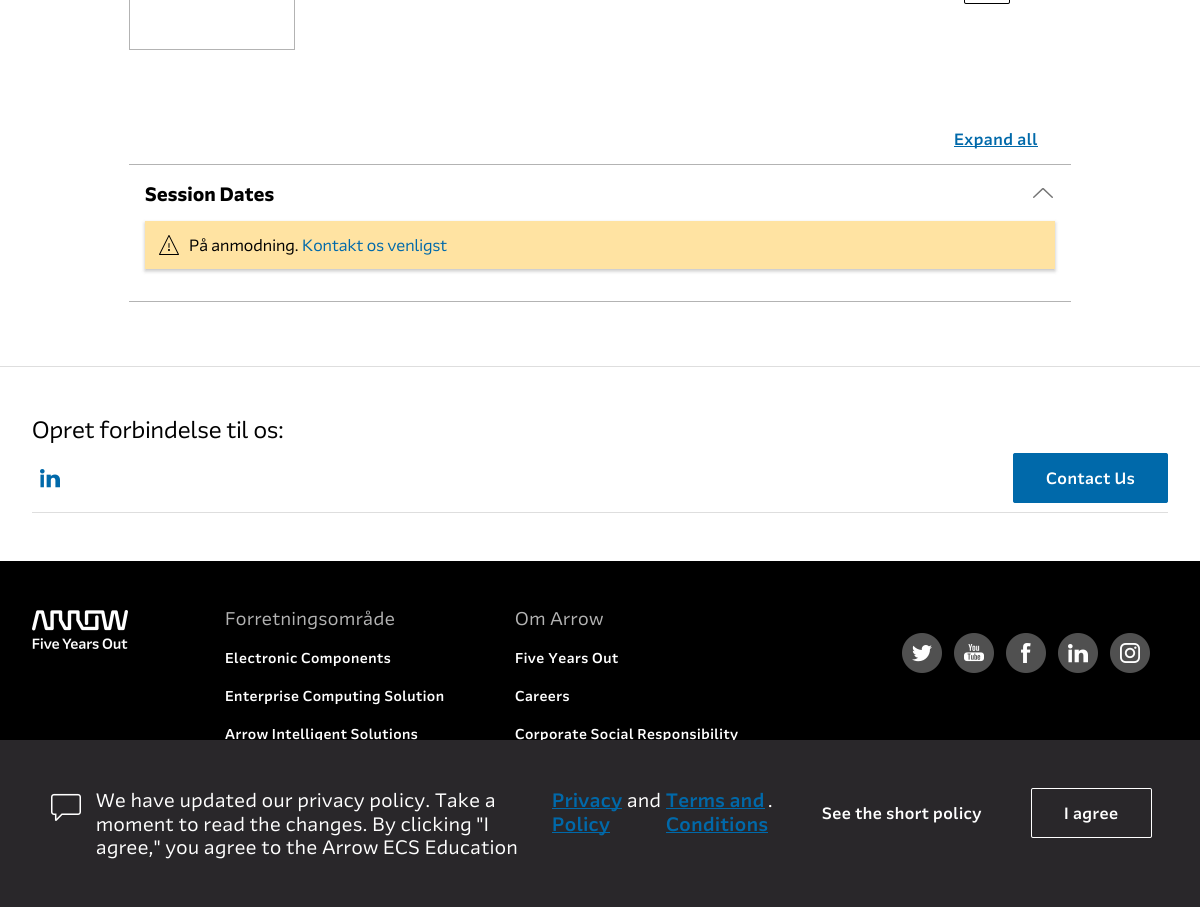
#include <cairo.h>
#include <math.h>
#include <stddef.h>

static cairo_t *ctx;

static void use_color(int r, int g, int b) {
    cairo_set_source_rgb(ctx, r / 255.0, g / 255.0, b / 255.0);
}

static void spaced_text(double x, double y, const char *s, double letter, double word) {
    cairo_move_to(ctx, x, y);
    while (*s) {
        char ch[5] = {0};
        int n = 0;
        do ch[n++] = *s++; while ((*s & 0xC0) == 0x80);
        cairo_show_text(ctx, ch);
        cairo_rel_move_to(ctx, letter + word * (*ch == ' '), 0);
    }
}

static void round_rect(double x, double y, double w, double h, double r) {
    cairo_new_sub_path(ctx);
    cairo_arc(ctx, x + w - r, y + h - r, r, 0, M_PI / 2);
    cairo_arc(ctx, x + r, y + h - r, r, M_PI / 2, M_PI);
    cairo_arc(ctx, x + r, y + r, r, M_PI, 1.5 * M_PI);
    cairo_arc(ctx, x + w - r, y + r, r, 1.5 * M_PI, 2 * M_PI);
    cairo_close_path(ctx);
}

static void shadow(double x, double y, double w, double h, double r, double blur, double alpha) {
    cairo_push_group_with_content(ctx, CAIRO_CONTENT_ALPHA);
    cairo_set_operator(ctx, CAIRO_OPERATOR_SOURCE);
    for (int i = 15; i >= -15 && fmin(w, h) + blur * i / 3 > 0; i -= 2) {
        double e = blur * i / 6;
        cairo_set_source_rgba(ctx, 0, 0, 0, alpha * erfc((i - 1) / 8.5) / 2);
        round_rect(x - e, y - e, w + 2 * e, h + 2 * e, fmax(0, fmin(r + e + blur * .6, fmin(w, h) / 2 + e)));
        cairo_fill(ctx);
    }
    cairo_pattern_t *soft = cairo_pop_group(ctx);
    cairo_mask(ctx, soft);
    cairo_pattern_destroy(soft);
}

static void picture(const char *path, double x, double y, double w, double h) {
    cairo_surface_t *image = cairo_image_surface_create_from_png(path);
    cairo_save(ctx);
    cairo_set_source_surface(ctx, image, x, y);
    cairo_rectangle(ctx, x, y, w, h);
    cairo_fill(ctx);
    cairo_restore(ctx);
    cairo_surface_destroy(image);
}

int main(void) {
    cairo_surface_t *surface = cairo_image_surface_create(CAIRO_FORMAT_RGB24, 1200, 907);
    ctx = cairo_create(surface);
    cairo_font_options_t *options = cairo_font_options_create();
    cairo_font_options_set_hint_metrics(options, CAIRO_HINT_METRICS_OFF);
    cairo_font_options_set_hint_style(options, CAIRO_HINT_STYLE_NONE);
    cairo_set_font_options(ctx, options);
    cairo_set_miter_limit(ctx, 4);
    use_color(255, 255, 255);
    cairo_paint(ctx);
    cairo_rectangle(ctx, 129.5, -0.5, 165, 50);
    use_color(179, 179, 179);
    cairo_set_line_width(ctx, 1);
    cairo_stroke(ctx);
    round_rect(964.5, -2.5, 45, 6, 1.5);
    use_color(0, 0, 0);
    cairo_stroke(ctx);
    use_color(0, 105, 170);
    cairo_rectangle(ctx, 954, 146, 84, 1);
    cairo_fill(ctx);
    cairo_select_font_face(ctx, "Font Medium", CAIRO_FONT_SLANT_NORMAL, CAIRO_FONT_WEIGHT_NORMAL);
    cairo_set_font_size(ctx, 16);
    spaced_text(954, 145, "Expand all", 0.5, 0);
    use_color(179, 179, 179);
    cairo_rectangle(ctx, 129, 301, 942, 1);
    cairo_fill(ctx);
    cairo_rectangle(ctx, 129, 164, 942, 1);
    cairo_fill(ctx);
    cairo_select_font_face(ctx, "Font", CAIRO_FONT_SLANT_NORMAL, CAIRO_FONT_WEIGHT_BOLD);
    cairo_set_font_size(ctx, 19);
    use_color(0, 0, 0);
    cairo_move_to(ctx, 145, 201);
    cairo_show_text(ctx, "Session Dates");
    picture("img1.png", 1033, 188, 20, 10);
    use_color(0, 0, 0);
    shadow(145, 223, 910, 48, 0, 2, 0.24);
    use_color(255, 227, 162);
    cairo_rectangle(ctx, 145, 221, 910, 48);
    cairo_fill(ctx);
    picture("img2.png", 159, 235, 20, 20);
    cairo_select_font_face(ctx, "Font", CAIRO_FONT_SLANT_NORMAL, CAIRO_FONT_WEIGHT_NORMAL);
    cairo_set_font_size(ctx, 16);
    use_color(0, 0, 0);
    cairo_move_to(ctx, 189, 251);
    cairo_show_text(ctx, "På anmodning.");
    use_color(0, 105, 170);
    cairo_move_to(ctx, 302, 251);
    cairo_show_text(ctx, "Kontakt os venligst");
    use_color(222, 222, 222);
    cairo_rectangle(ctx, 0, 366, 1200, 1);
    cairo_fill(ctx);
    cairo_set_font_size(ctx, 23);
    use_color(0, 0, 0);
    cairo_move_to(ctx, 32, 438);
    cairo_show_text(ctx, "Opret forbindelse til os:");
    use_color(222, 222, 222);
    cairo_rectangle(ctx, 32, 512, 1136, 1);
    cairo_fill(ctx);
    picture("img3.png", 40, 469, 20, 19);
    use_color(0, 105, 170);
    round_rect(1013.5, 453.5, 154, 49, 1.5);
    cairo_fill_preserve(ctx);
    cairo_stroke(ctx);
    cairo_select_font_face(ctx, "Font Medium", CAIRO_FONT_SLANT_NORMAL, CAIRO_FONT_WEIGHT_NORMAL);
    cairo_set_font_size(ctx, 16);
    use_color(255, 255, 255);
    spaced_text(1046, 484, "Contact Us", 0.5, 0);
    use_color(0, 0, 0);
    cairo_rectangle(ctx, 0, 561, 1200, 179);
    cairo_fill(ctx);
    picture("img4.png", 32, 610, 96, 39);
    cairo_select_font_face(ctx, "Font", CAIRO_FONT_SLANT_NORMAL, CAIRO_FONT_WEIGHT_NORMAL);
    cairo_set_font_size(ctx, 18);
    use_color(179, 179, 179);
    spaced_text(225, 625, "Forretningsområde", 0.5, 0);
    cairo_select_font_face(ctx, "Font Medium", CAIRO_FONT_SLANT_NORMAL, CAIRO_FONT_WEIGHT_NORMAL);
    cairo_set_font_size(ctx, 14);
    use_color(255, 255, 255);
    spaced_text(225, 663, "Electronic Components", 0.5, 0);
    spaced_text(225, 701, "Enterprise Computing Solution", 0.5, 0);
    spaced_text(225, 739, "Arrow Intelligent Solutions", 0.5, 0);
    cairo_select_font_face(ctx, "Font", CAIRO_FONT_SLANT_NORMAL, CAIRO_FONT_WEIGHT_NORMAL);
    cairo_set_font_size(ctx, 18);
    use_color(179, 179, 179);
    spaced_text(515, 625, "Om Arrow", 0.5, 0);
    cairo_select_font_face(ctx, "Font Medium", CAIRO_FONT_SLANT_NORMAL, CAIRO_FONT_WEIGHT_NORMAL);
    cairo_set_font_size(ctx, 14);
    use_color(255, 255, 255);
    spaced_text(515, 663, "Five Years Out", 0.5, 0);
    spaced_text(515, 701, "Careers", 0.5, 0);
    spaced_text(515, 739, "Corporate Social Responsibility", 0.5, 0);
    use_color(80, 80, 80);
    cairo_new_path(ctx);
    cairo_arc(ctx, 922, 653, 20, 0, 2 * M_PI);
    cairo_fill(ctx);
    picture("img5.png", 912, 645, 20, 17);
    cairo_arc(ctx, 974, 653, 20, 0, 2 * M_PI);
    cairo_fill(ctx);
    picture("img6.png", 964, 644, 20, 18);
    cairo_arc(ctx, 1026, 653, 20, 0, 2 * M_PI);
    cairo_fill(ctx);
    picture("img7.png", 1021, 643, 10, 20);
    cairo_arc(ctx, 1078, 653, 20, 0, 2 * M_PI);
    cairo_fill(ctx);
    picture("img8.png", 1068, 644, 20, 19);
    cairo_arc(ctx, 1130, 653, 20, 0, 2 * M_PI);
    cairo_fill(ctx);
    picture("img9.png", 1120, 643, 20, 20);
    use_color(41, 39, 42);
    cairo_rectangle(ctx, 0, 740, 1200, 167);
    cairo_fill(ctx);
    picture("img10.png", 51, 793, 30, 28);
    cairo_select_font_face(ctx, "Font", CAIRO_FONT_SLANT_NORMAL, CAIRO_FONT_WEIGHT_NORMAL);
    cairo_set_font_size(ctx, 19);
    use_color(255, 255, 255);
    spaced_text(96, 807, "We have updated our privacy policy. Take a", 0.5, 0);
    use_color(0, 105, 170);
    cairo_rectangle(ctx, 552, 808, 70, 1);
    cairo_fill(ctx);
    cairo_select_font_face(ctx, "Font Medium", CAIRO_FONT_SLANT_NORMAL, CAIRO_FONT_WEIGHT_NORMAL);
    spaced_text(552, 807, "Privacy", 0.5, 0);
    cairo_rectangle(ctx, 552, 832, 58, 1);
    cairo_fill(ctx);
    spaced_text(552, 831, "Policy", 0.5, 0);
    cairo_select_font_face(ctx, "Font", CAIRO_FONT_SLANT_NORMAL, CAIRO_FONT_WEIGHT_NORMAL);
    use_color(255, 255, 255);
    spaced_text(627, 807, "and", 0.5, 0);
    cairo_select_font_face(ctx, "Font Medium", CAIRO_FONT_SLANT_NORMAL, CAIRO_FONT_WEIGHT_NORMAL);
    use_color(0, 105, 170);
    spaced_text(666, 807, "Terms and", 0.5, 0);
    cairo_rectangle(ctx, 666, 808, 99, 1);
    cairo_fill(ctx);
    spaced_text(666, 831, "Conditions", 0.5, 0);
    cairo_rectangle(ctx, 666, 832, 102, 1);
    cairo_fill(ctx);
    cairo_select_font_face(ctx, "Font", CAIRO_FONT_SLANT_NORMAL, CAIRO_FONT_WEIGHT_NORMAL);
    use_color(255, 255, 255);
    spaced_text(768, 807, ".", 0.5, 0);
    spaced_text(96, 831, "moment to read the changes. By clicking \"I", 0.5, 0);
    spaced_text(96, 854, "agree,\" you agree to the Arrow ECS Education", 0.5, 0);
    cairo_select_font_face(ctx, "Font Medium", CAIRO_FONT_SLANT_NORMAL, CAIRO_FONT_WEIGHT_NORMAL);
    cairo_set_font_size(ctx, 16);
    spaced_text(822, 819, "See the short policy", 0.5, 0);
    round_rect(1031.5, 788.5, 120, 49, 1.5);
    cairo_stroke(ctx);
    spaced_text(1064, 819, "I agree", 0.5, 0);
    cairo_surface_write_to_png(surface, "result.png");
    cairo_font_options_destroy(options);
    cairo_destroy(ctx);
    cairo_surface_destroy(surface);
    return 0;
}
